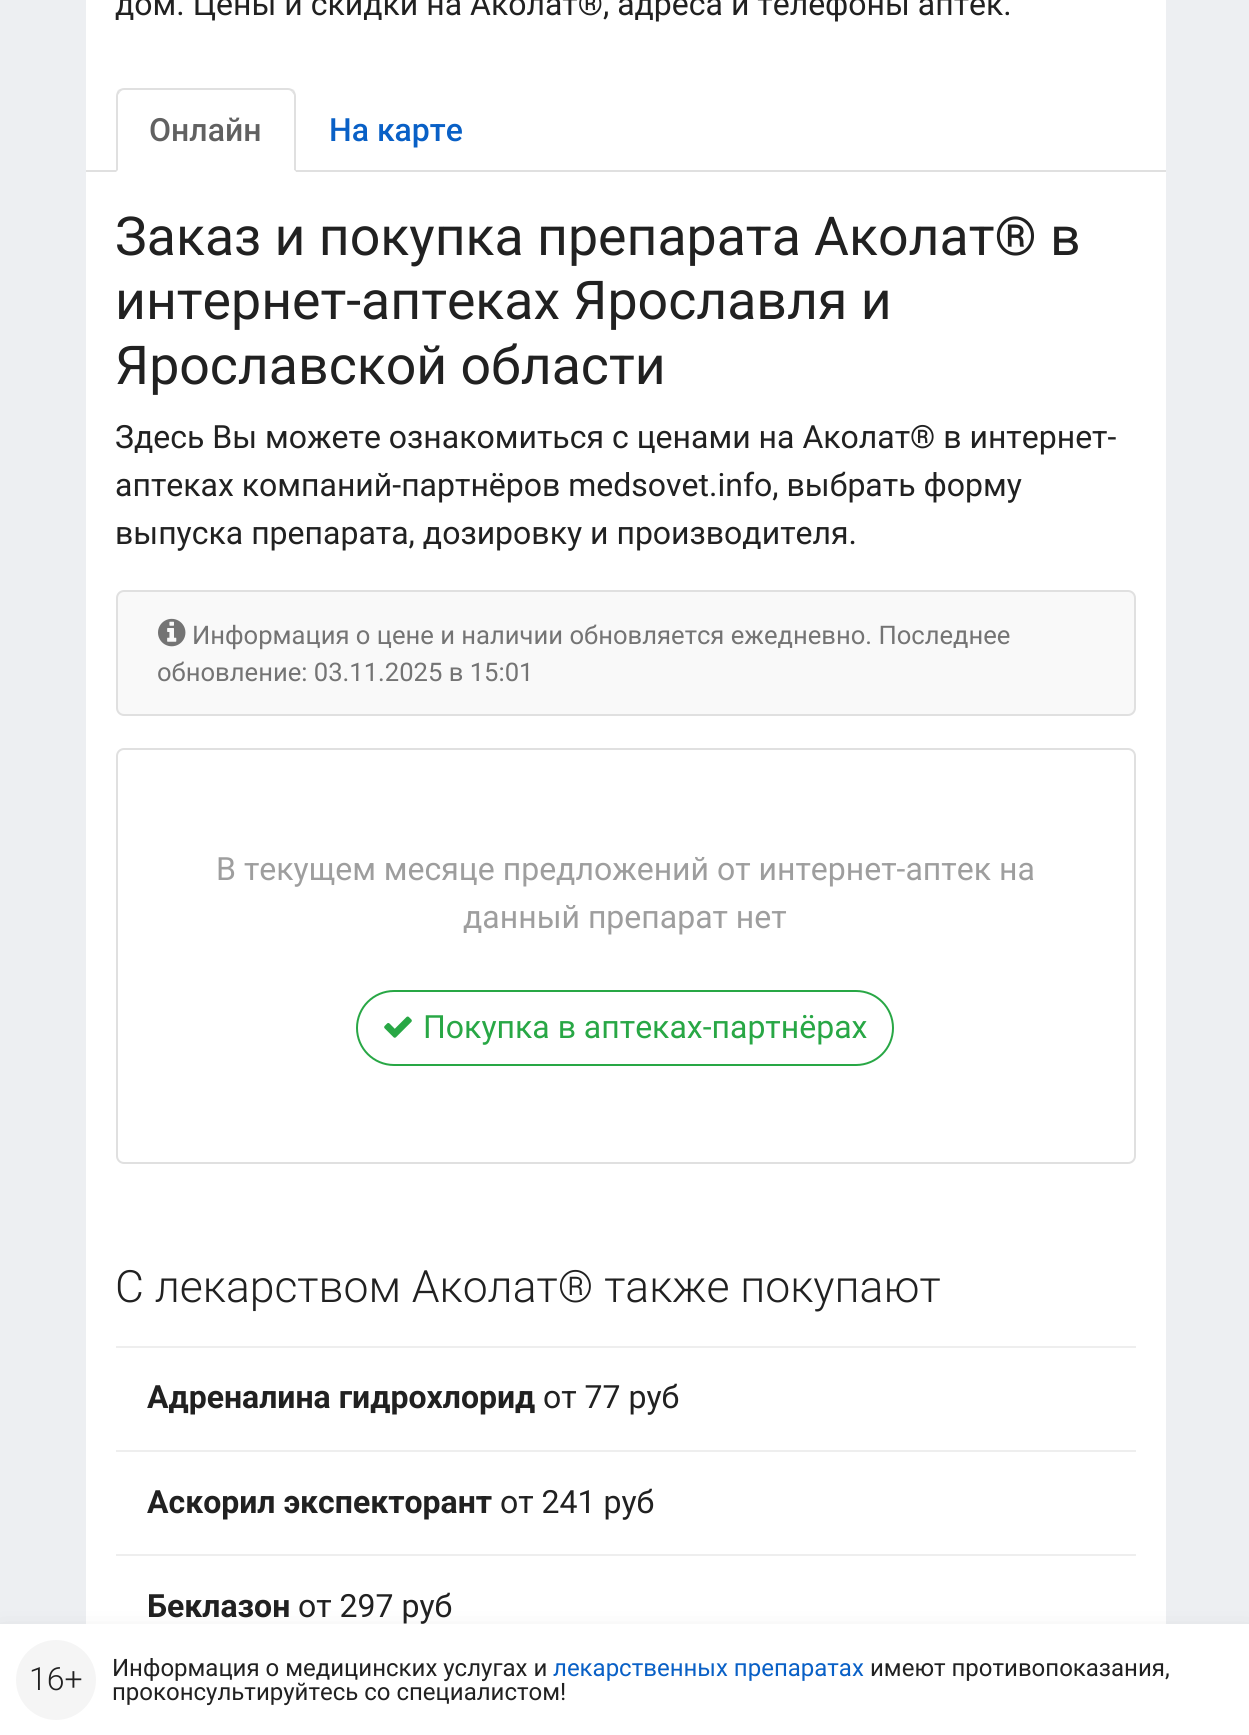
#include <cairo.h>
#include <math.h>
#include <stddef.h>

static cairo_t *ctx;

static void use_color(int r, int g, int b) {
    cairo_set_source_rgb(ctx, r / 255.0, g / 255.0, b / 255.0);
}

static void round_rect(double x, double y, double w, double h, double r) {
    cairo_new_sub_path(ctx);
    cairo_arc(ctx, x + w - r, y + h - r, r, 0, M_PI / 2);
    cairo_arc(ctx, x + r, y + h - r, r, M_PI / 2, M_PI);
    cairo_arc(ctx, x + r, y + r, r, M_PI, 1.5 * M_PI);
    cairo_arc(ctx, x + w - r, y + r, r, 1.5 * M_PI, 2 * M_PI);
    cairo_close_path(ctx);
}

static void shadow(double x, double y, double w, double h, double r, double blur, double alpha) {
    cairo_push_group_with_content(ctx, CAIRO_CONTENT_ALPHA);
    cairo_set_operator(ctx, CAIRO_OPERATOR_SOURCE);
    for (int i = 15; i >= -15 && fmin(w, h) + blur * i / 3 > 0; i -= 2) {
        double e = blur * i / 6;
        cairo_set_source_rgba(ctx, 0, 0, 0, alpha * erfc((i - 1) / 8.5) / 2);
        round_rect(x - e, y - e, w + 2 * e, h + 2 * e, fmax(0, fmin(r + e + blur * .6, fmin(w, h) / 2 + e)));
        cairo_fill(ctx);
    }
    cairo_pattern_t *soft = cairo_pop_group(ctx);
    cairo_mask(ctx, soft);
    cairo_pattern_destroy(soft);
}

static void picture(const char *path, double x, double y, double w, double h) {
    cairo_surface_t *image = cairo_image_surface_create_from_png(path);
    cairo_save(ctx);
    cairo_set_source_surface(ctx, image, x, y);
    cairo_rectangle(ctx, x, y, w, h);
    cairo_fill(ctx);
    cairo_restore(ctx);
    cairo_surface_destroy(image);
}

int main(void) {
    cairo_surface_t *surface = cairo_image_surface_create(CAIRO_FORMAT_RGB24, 1249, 1735);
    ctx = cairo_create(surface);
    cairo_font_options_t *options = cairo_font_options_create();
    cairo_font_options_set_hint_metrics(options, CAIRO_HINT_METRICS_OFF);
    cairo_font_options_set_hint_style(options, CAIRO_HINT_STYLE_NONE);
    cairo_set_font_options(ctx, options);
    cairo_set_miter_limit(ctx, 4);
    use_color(237, 239, 242);
    cairo_paint(ctx);
    use_color(255, 255, 255);
    cairo_rectangle(ctx, 86, 0, 1080, 1624);
    cairo_fill(ctx);
    cairo_select_font_face(ctx, "Roboto", CAIRO_FONT_SLANT_NORMAL, CAIRO_FONT_WEIGHT_NORMAL);
    cairo_set_font_size(ctx, 32);
    use_color(33, 33, 33);
    cairo_move_to(ctx, 115, 15);
    cairo_show_text(ctx, "дом. Цены и скидки на Аколат®, адреса и телефоны аптек.");
    use_color(224, 224, 224);
    cairo_rectangle(ctx, 86, 170, 1080, 2);
    cairo_fill(ctx);
    use_color(255, 255, 255);
    cairo_new_path(ctx);
    cairo_move_to(ctx, 124, 88);
    cairo_line_to(ctx, 288, 88);
    cairo_curve_to(ctx, 292.5, 88, 296, 91.5, 296, 96);
    cairo_line_to(ctx, 296, 172);
    cairo_line_to(ctx, 116, 172);
    cairo_line_to(ctx, 116, 96);
    cairo_curve_to(ctx, 116, 91.5, 119.5, 88, 124, 88);
    cairo_close_path(ctx);
    cairo_fill(ctx);
    use_color(224, 224, 224);
    cairo_new_path(ctx);
    cairo_move_to(ctx, 124, 88);
    cairo_curve_to(ctx, 122, 88, 120, 89, 118, 90);
    cairo_line_to(ctx, 120, 92);
    cairo_curve_to(ctx, 121, 91, 122, 90, 124, 90);
    cairo_line_to(ctx, 288, 90);
    cairo_curve_to(ctx, 290, 90, 291, 91, 292, 92);
    cairo_line_to(ctx, 294, 90);
    cairo_curve_to(ctx, 292, 89, 290, 88, 288, 88);
    cairo_close_path(ctx);
    cairo_fill(ctx);
    cairo_new_path(ctx);
    cairo_move_to(ctx, 296, 172);
    cairo_line_to(ctx, 296, 96);
    cairo_curve_to(ctx, 296, 94, 295, 92, 294, 90);
    cairo_line_to(ctx, 292, 92);
    cairo_line_to(ctx, 294, 95);
    cairo_line_to(ctx, 294, 170);
    cairo_close_path(ctx);
    cairo_fill(ctx);
    use_color(255, 255, 255);
    cairo_new_path(ctx);
    cairo_move_to(ctx, 296, 172);
    cairo_line_to(ctx, 294, 170);
    cairo_line_to(ctx, 118, 170);
    cairo_line_to(ctx, 116, 172);
    cairo_close_path(ctx);
    cairo_fill(ctx);
    use_color(224, 224, 224);
    cairo_new_path(ctx);
    cairo_move_to(ctx, 116, 172);
    cairo_line_to(ctx, 118, 170);
    cairo_line_to(ctx, 118, 95);
    cairo_line_to(ctx, 120, 92);
    cairo_line_to(ctx, 118, 90);
    cairo_curve_to(ctx, 117, 92, 116, 94, 116, 96);
    cairo_close_path(ctx);
    cairo_fill(ctx);
    cairo_select_font_face(ctx, "Roboto Medium", CAIRO_FONT_SLANT_NORMAL, CAIRO_FONT_WEIGHT_NORMAL);
    use_color(97, 97, 97);
    cairo_move_to(ctx, 149, 141);
    cairo_show_text(ctx, "Онлайн");
    use_color(9, 96, 198);
    cairo_move_to(ctx, 329, 141);
    cairo_show_text(ctx, "На карте");
    cairo_select_font_face(ctx, "Roboto", CAIRO_FONT_SLANT_NORMAL, CAIRO_FONT_WEIGHT_NORMAL);
    cairo_set_font_size(ctx, 53.6);
    use_color(33, 33, 33);
    cairo_move_to(ctx, 115, 255);
    cairo_show_text(ctx, "Заказ и покупка препарата Аколат® в");
    cairo_move_to(ctx, 115, 319);
    cairo_show_text(ctx, "интернет-аптеках Ярославля и");
    cairo_move_to(ctx, 115, 384);
    cairo_show_text(ctx, "Ярославской области");
    cairo_set_font_size(ctx, 32);
    cairo_move_to(ctx, 115, 448);
    cairo_show_text(ctx, "Здесь Вы можете ознакомиться с ценами на Аколат® в интернет-");
    cairo_move_to(ctx, 115, 496);
    cairo_show_text(ctx, "аптеках компаний-партнёров medsovet.info, выбрать форму");
    cairo_move_to(ctx, 115, 544);
    cairo_show_text(ctx, "выпуска препарата, дозировку и производителя.");
    use_color(249, 249, 249);
    round_rect(117, 591, 1018, 124, 7);
    cairo_fill_preserve(ctx);
    use_color(224, 224, 224);
    cairo_stroke(ctx);
    picture("img1.png", 158, 618, 28, 29);
    cairo_set_font_size(ctx, 25.6);
    use_color(116, 116, 116);
    cairo_move_to(ctx, 192, 644);
    cairo_show_text(ctx, "Информация о цене и наличии обновляется ежедневно. Последнее");
    cairo_move_to(ctx, 157, 681);
    cairo_show_text(ctx, "обновление: 03.11.2025 в 15:01");
    round_rect(117, 749, 1018, 414, 7);
    use_color(224, 224, 224);
    cairo_stroke(ctx);
    cairo_set_font_size(ctx, 32);
    use_color(158, 158, 158);
    cairo_move_to(ctx, 216, 880);
    cairo_show_text(ctx, "В текущем месяце предложений от интернет-аптек на");
    cairo_move_to(ctx, 463, 928);
    cairo_show_text(ctx, "данный препарат нет");
    round_rect(357, 991, 536, 74, 37);
    use_color(40, 167, 69);
    cairo_stroke(ctx);
    picture("img2.png", 384, 1016, 28, 22);
    cairo_move_to(ctx, 423, 1038);
    cairo_show_text(ctx, "Покупка в аптеках-партнёрах");
    cairo_select_font_face(ctx, "Roboto Light", CAIRO_FONT_SLANT_NORMAL, CAIRO_FONT_WEIGHT_NORMAL);
    cairo_set_font_size(ctx, 44.5);
    use_color(33, 33, 33);
    cairo_move_to(ctx, 115, 1302);
    cairo_show_text(ctx, "С лекарством Аколат® также покупают");
    use_color(238, 238, 238);
    cairo_rectangle(ctx, 116, 1346, 1020, 2);
    cairo_fill(ctx);
    cairo_select_font_face(ctx, "Roboto", CAIRO_FONT_SLANT_NORMAL, CAIRO_FONT_WEIGHT_BOLD);
    cairo_set_font_size(ctx, 32);
    use_color(33, 33, 33);
    cairo_move_to(ctx, 147, 1408);
    cairo_show_text(ctx, "Адреналина гидрохлорид");
    cairo_select_font_face(ctx, "Roboto", CAIRO_FONT_SLANT_NORMAL, CAIRO_FONT_WEIGHT_NORMAL);
    cairo_move_to(ctx, 543, 1408);
    cairo_show_text(ctx, "от 77 руб");
    use_color(238, 238, 238);
    cairo_rectangle(ctx, 116, 1450, 1020, 2);
    cairo_fill(ctx);
    cairo_select_font_face(ctx, "Roboto", CAIRO_FONT_SLANT_NORMAL, CAIRO_FONT_WEIGHT_BOLD);
    use_color(33, 33, 33);
    cairo_move_to(ctx, 147, 1513);
    cairo_show_text(ctx, "Аскорил экспекторант");
    cairo_select_font_face(ctx, "Roboto", CAIRO_FONT_SLANT_NORMAL, CAIRO_FONT_WEIGHT_NORMAL);
    cairo_move_to(ctx, 500, 1513);
    cairo_show_text(ctx, "от 241 руб");
    use_color(238, 238, 238);
    cairo_rectangle(ctx, 116, 1554, 1020, 2);
    cairo_fill(ctx);
    cairo_select_font_face(ctx, "Roboto", CAIRO_FONT_SLANT_NORMAL, CAIRO_FONT_WEIGHT_BOLD);
    use_color(33, 33, 33);
    cairo_move_to(ctx, 147, 1617);
    cairo_show_text(ctx, "Беклазон");
    cairo_select_font_face(ctx, "Roboto", CAIRO_FONT_SLANT_NORMAL, CAIRO_FONT_WEIGHT_NORMAL);
    cairo_move_to(ctx, 298, 1617);
    cairo_show_text(ctx, "от 297 руб");
    use_color(0, 0, 0);
    shadow(0, 1640, 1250, 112, 0, 16, 0.15);
    use_color(255, 255, 255);
    cairo_rectangle(ctx, 0, 1624, 1249, 111);
    cairo_fill(ctx);
    use_color(245, 245, 245);
    cairo_arc(ctx, 56, 1680, 40, 0, 2 * M_PI);
    cairo_fill(ctx);
    cairo_select_font_face(ctx, "Roboto Light", CAIRO_FONT_SLANT_NORMAL, CAIRO_FONT_WEIGHT_NORMAL);
    use_color(33, 33, 33);
    cairo_move_to(ctx, 29, 1690);
    cairo_show_text(ctx, "16+");
    cairo_select_font_face(ctx, "Roboto", CAIRO_FONT_SLANT_NORMAL, CAIRO_FONT_WEIGHT_NORMAL);
    cairo_set_font_size(ctx, 24);
    cairo_move_to(ctx, 112, 1676);
    cairo_show_text(ctx, "Информация о медицинских услугах и");
    use_color(9, 96, 198);
    cairo_move_to(ctx, 553, 1676);
    cairo_show_text(ctx, "лекарственных препаратах");
    use_color(33, 33, 33);
    cairo_move_to(ctx, 870, 1676);
    cairo_show_text(ctx, "имеют противопоказания,");
    cairo_move_to(ctx, 112, 1700);
    cairo_show_text(ctx, "проконсультируйтесь со специалистом!");
    cairo_surface_write_to_png(surface, "result.png");
    cairo_font_options_destroy(options);
    cairo_destroy(ctx);
    cairo_surface_destroy(surface);
    return 0;
}
